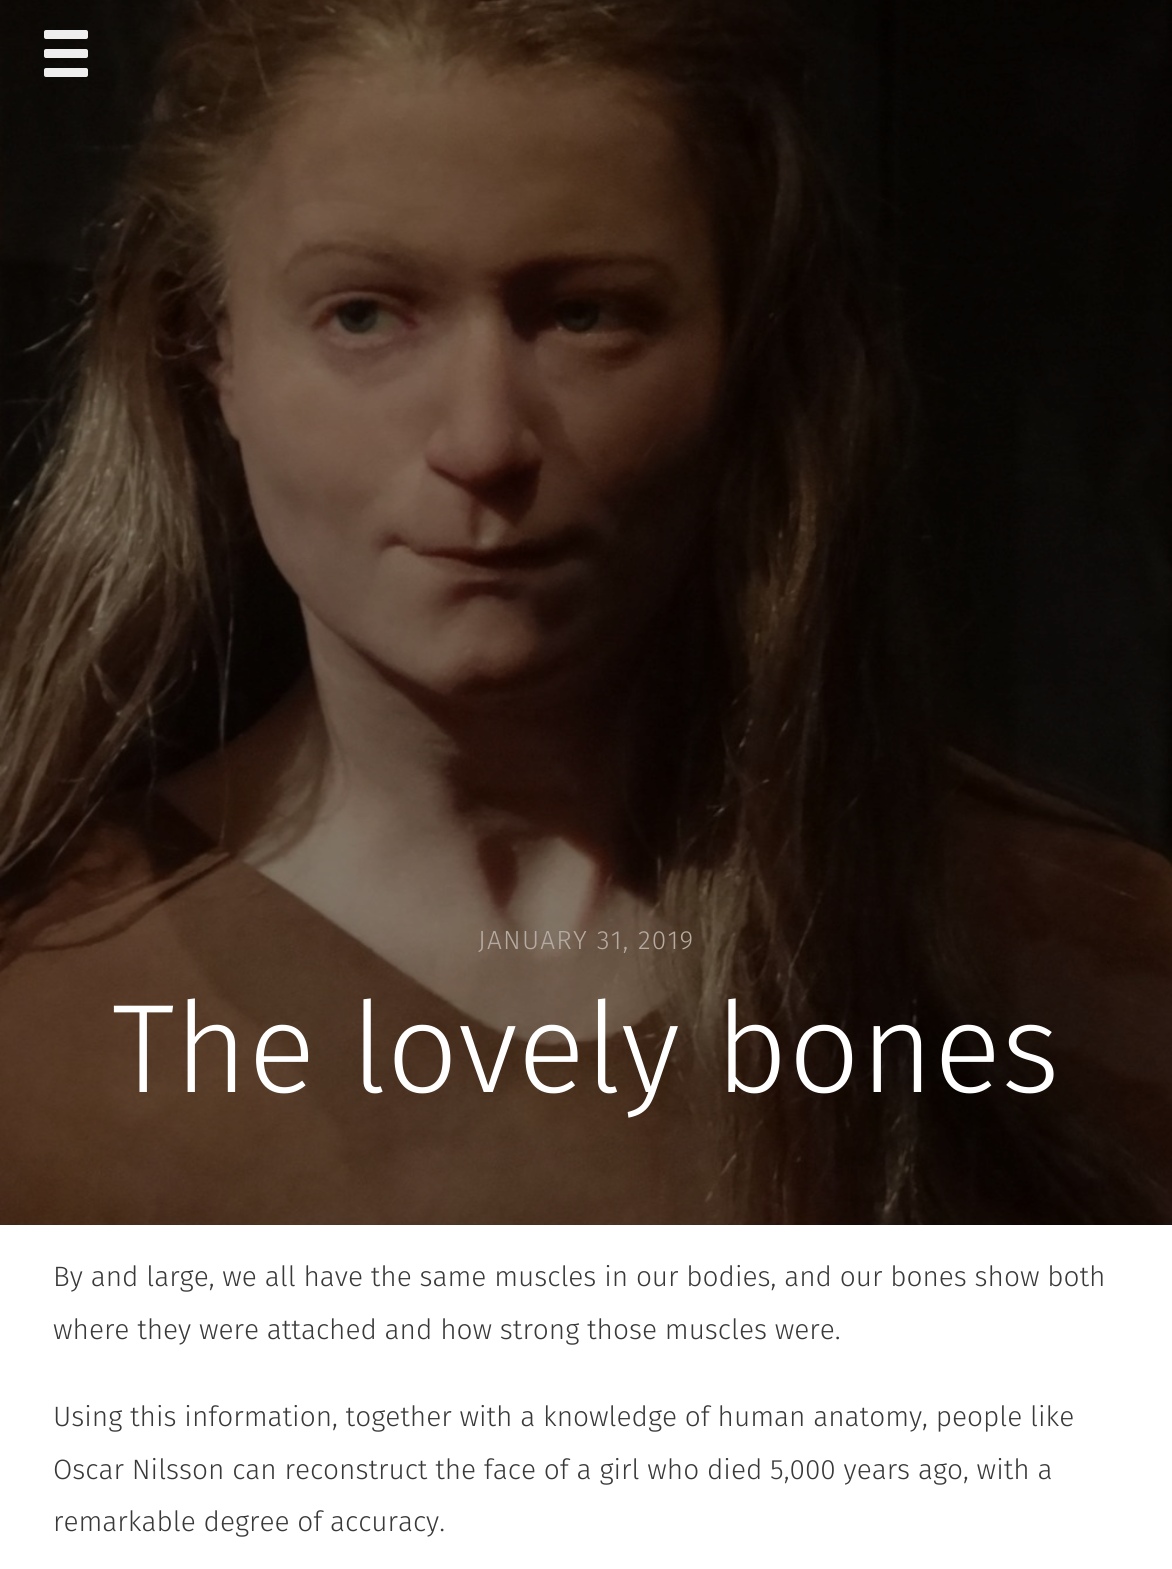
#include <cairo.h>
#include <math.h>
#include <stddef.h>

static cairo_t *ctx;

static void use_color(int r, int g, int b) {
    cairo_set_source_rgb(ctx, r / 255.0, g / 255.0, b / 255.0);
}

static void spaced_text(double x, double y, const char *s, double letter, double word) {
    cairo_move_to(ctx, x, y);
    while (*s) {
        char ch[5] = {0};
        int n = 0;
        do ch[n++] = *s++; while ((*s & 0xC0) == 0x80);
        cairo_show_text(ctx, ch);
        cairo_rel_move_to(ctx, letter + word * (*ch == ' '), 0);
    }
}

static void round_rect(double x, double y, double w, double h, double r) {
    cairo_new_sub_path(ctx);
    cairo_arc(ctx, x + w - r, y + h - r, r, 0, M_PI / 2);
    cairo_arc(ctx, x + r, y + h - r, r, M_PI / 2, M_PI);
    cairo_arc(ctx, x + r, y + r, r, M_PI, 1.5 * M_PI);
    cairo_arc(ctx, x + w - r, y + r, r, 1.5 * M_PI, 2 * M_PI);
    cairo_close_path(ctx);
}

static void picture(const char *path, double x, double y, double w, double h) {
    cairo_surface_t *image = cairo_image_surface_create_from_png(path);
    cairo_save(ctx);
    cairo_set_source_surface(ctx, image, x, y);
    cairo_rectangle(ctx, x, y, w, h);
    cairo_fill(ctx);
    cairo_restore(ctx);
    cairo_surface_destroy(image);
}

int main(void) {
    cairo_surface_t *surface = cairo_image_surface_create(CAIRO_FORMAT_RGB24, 1172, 1569);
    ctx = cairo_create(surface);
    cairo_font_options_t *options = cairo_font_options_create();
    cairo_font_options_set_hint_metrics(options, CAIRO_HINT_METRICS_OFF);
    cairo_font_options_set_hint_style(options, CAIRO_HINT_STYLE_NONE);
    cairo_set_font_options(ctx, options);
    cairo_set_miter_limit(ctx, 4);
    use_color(255, 255, 255);
    cairo_paint(ctx);
    picture("img1.png", 0, 0, 1172, 1225);
    use_color(238, 238, 238);
    round_rect(44, 49, 44, 9, 2);
    cairo_fill(ctx);
    round_rect(44, 30, 44, 9, 2);
    cairo_fill(ctx);
    round_rect(44, 68, 44, 9, 2);
    cairo_fill(ctx);
    cairo_select_font_face(ctx, "Fira Sans Light", CAIRO_FONT_SLANT_NORMAL, CAIRO_FONT_WEIGHT_NORMAL);
    cairo_set_font_size(ctx, 26.25);
    use_color(181, 171, 163);
    spaced_text(478, 949, "JANUARY 31, 2019", 1.25, 0);
    cairo_set_font_size(ctx, 126);
    use_color(255, 255, 255);
    cairo_move_to(ctx, 112, 1092);
    cairo_show_text(ctx, "The lovely bones");
    cairo_set_font_size(ctx, 28);
    use_color(58, 57, 57);
    cairo_move_to(ctx, 53, 1286);
    cairo_show_text(ctx, "By and large, we all have the same muscles in our bodies, and our bones show both");
    cairo_move_to(ctx, 53, 1339);
    cairo_show_text(ctx, "where they were attached and how strong those muscles were.");
    cairo_move_to(ctx, 53, 1426);
    cairo_show_text(ctx, "Using this information, together with a knowledge of human anatomy, people like");
    cairo_move_to(ctx, 53, 1479);
    cairo_show_text(ctx, "Oscar Nilsson can reconstruct the face of a girl who died 5,000 years ago, with a");
    cairo_move_to(ctx, 53, 1531);
    cairo_show_text(ctx, "remarkable degree of accuracy.");
    cairo_surface_write_to_png(surface, "result.png");
    cairo_font_options_destroy(options);
    cairo_destroy(ctx);
    cairo_surface_destroy(surface);
    return 0;
}
